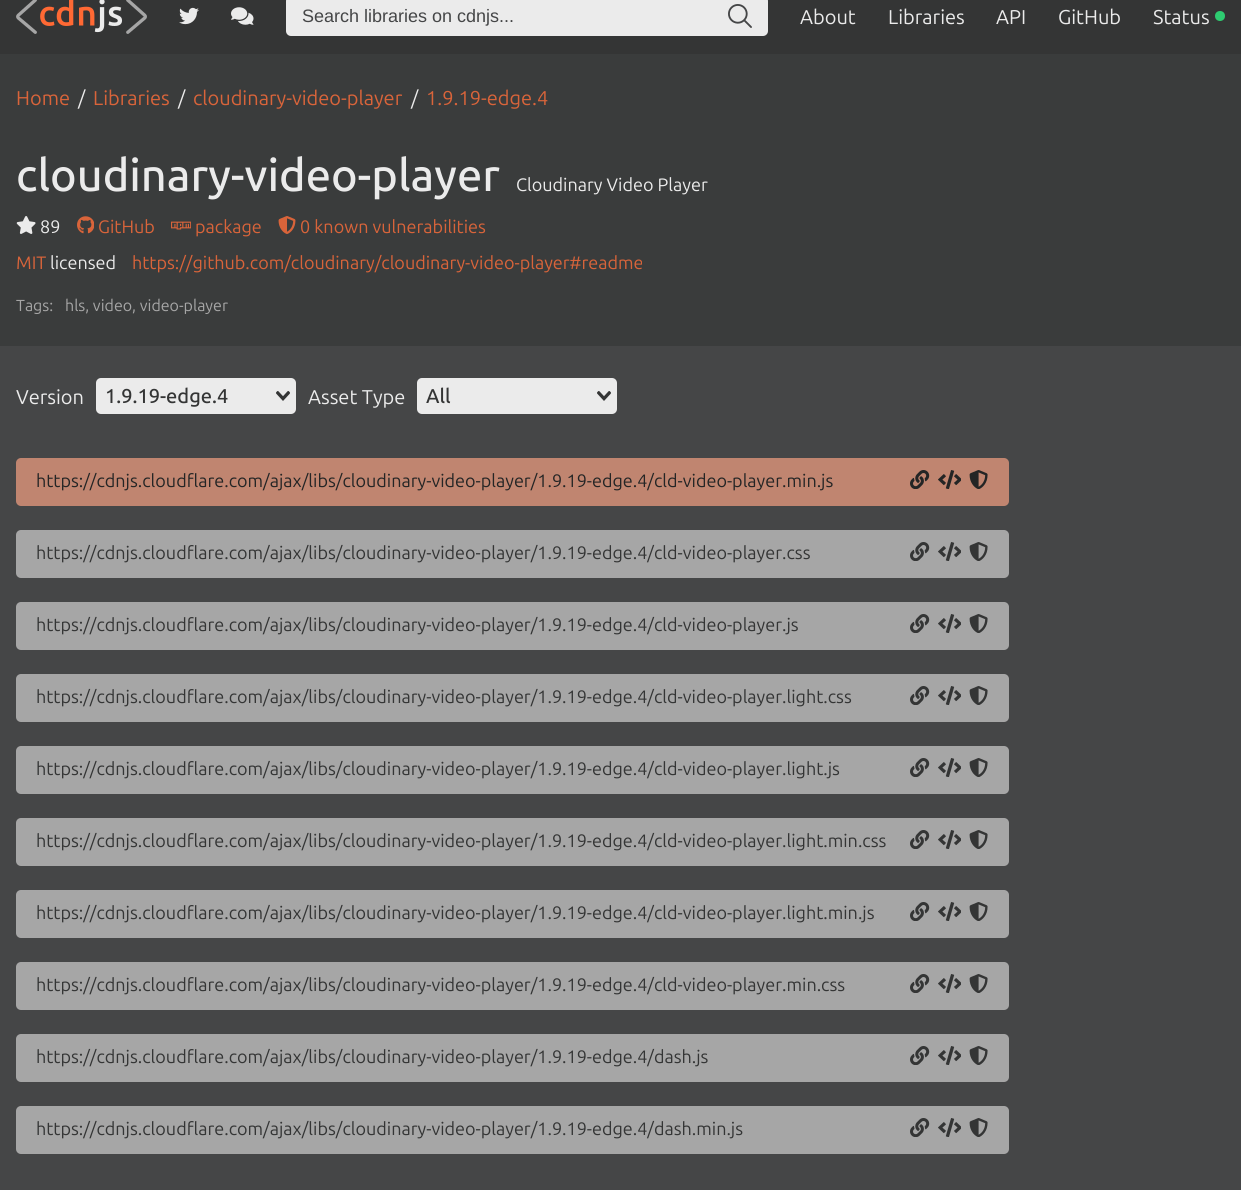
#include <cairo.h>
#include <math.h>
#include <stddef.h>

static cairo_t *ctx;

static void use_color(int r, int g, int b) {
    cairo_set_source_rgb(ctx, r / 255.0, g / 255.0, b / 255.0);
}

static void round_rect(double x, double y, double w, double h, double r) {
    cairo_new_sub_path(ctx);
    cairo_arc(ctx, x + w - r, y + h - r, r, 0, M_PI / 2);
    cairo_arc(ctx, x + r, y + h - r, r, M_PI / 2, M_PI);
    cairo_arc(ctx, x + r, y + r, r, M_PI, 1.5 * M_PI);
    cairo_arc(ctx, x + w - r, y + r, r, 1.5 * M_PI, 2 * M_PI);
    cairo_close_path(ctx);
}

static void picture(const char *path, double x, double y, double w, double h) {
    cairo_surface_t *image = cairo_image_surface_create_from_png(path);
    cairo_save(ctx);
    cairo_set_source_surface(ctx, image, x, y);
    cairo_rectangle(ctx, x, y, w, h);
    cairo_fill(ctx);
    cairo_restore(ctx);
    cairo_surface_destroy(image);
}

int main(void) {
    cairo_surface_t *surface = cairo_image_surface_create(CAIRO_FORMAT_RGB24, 1241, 1190);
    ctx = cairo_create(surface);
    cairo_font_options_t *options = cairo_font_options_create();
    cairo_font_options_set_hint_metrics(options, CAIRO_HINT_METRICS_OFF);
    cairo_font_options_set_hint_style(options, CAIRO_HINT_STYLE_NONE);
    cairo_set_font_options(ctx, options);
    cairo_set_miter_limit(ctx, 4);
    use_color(69, 70, 71);
    cairo_paint(ctx);
    use_color(52, 53, 53);
    cairo_rectangle(ctx, 0, 0, 1241, 54);
    cairo_fill(ctx);
    picture("img1.png", 16, 0, 131, 34);
    picture("img2.png", 179, 7, 20, 18);
    picture("img3.png", 231, 7, 23, 18);
    use_color(235, 235, 235);
    round_rect(286, -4, 482, 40, 5);
    cairo_fill(ctx);
    cairo_select_font_face(ctx, "Liberation Sans", CAIRO_FONT_SLANT_NORMAL, CAIRO_FONT_WEIGHT_NORMAL);
    cairo_set_font_size(ctx, 18);
    use_color(69, 70, 71);
    cairo_move_to(ctx, 302, 22);
    cairo_show_text(ctx, "Search libraries on cdnjs...");
    picture("img4.png", 728, 4, 24, 24);
    cairo_select_font_face(ctx, "Ubuntu", CAIRO_FONT_SLANT_NORMAL, CAIRO_FONT_WEIGHT_NORMAL);
    cairo_set_font_size(ctx, 20);
    use_color(235, 235, 235);
    cairo_move_to(ctx, 800, 24);
    cairo_show_text(ctx, "About");
    cairo_move_to(ctx, 888, 24);
    cairo_show_text(ctx, "Libraries");
    cairo_move_to(ctx, 996, 24);
    cairo_show_text(ctx, "API");
    cairo_move_to(ctx, 1058, 24);
    cairo_show_text(ctx, "GitHub");
    cairo_move_to(ctx, 1153, 24);
    cairo_show_text(ctx, "Status");
    use_color(46, 204, 113);
    cairo_new_path(ctx);
    cairo_arc(ctx, 1220, 16, 5, 0, 2 * M_PI);
    cairo_fill(ctx);
    use_color(58, 60, 60);
    cairo_rectangle(ctx, 0, 54, 1241, 292);
    cairo_fill(ctx);
    use_color(217, 100, 58);
    cairo_move_to(ctx, 16, 105);
    cairo_show_text(ctx, "Home");
    use_color(235, 235, 235);
    cairo_move_to(ctx, 78, 105);
    cairo_show_text(ctx, "/");
    use_color(217, 100, 58);
    cairo_move_to(ctx, 93, 105);
    cairo_show_text(ctx, "Libraries");
    use_color(235, 235, 235);
    cairo_move_to(ctx, 178, 105);
    cairo_show_text(ctx, "/");
    use_color(217, 100, 58);
    cairo_move_to(ctx, 193, 105);
    cairo_show_text(ctx, "cloudinary-video-player");
    use_color(235, 235, 235);
    cairo_move_to(ctx, 411, 105);
    cairo_show_text(ctx, "/");
    use_color(217, 100, 58);
    cairo_move_to(ctx, 426, 105);
    cairo_show_text(ctx, "1.9.19-edge.4");
    cairo_select_font_face(ctx, "Ubuntu Medium", CAIRO_FONT_SLANT_NORMAL, CAIRO_FONT_WEIGHT_NORMAL);
    cairo_set_font_size(ctx, 45);
    use_color(235, 235, 235);
    cairo_move_to(ctx, 16, 191);
    cairo_show_text(ctx, "cloudinary-video-player");
    cairo_select_font_face(ctx, "Ubuntu", CAIRO_FONT_SLANT_NORMAL, CAIRO_FONT_WEIGHT_NORMAL);
    cairo_set_font_size(ctx, 18);
    cairo_move_to(ctx, 516, 191);
    cairo_show_text(ctx, "Cloudinary Video Player");
    picture("img5.png", 16, 216, 20, 18);
    cairo_move_to(ctx, 40, 233);
    cairo_show_text(ctx, "89");
    picture("img6.png", 77, 216, 17, 18);
    use_color(217, 100, 58);
    cairo_move_to(ctx, 98, 233);
    cairo_show_text(ctx, "GitHub");
    picture("img7.png", 171, 221, 20, 9);
    cairo_move_to(ctx, 195, 233);
    cairo_show_text(ctx, "package");
    picture("img8.png", 278, 216, 18, 18);
    cairo_move_to(ctx, 300, 233);
    cairo_show_text(ctx, "0 known vulnerabilities");
    cairo_move_to(ctx, 16, 269);
    cairo_show_text(ctx, "MIT");
    use_color(235, 235, 235);
    cairo_move_to(ctx, 50, 269);
    cairo_show_text(ctx, "licensed");
    use_color(217, 100, 58);
    cairo_move_to(ctx, 132, 269);
    cairo_show_text(ctx, "https://github.com/cloudinary/cloudinary-video-player#readme");
    cairo_set_font_size(ctx, 16);
    use_color(166, 166, 166);
    cairo_move_to(ctx, 16, 311);
    cairo_show_text(ctx, "Tags:");
    cairo_move_to(ctx, 65, 311);
    cairo_show_text(ctx, "hls, video, video-player");
    cairo_set_font_size(ctx, 20);
    use_color(235, 235, 235);
    cairo_move_to(ctx, 16, 404);
    cairo_show_text(ctx, "Version");
    round_rect(96, 378, 200, 36, 5);
    cairo_fill(ctx);
    cairo_select_font_face(ctx, "Ubuntu Medium", CAIRO_FONT_SLANT_NORMAL, CAIRO_FONT_WEIGHT_NORMAL);
    use_color(52, 53, 53);
    cairo_move_to(ctx, 105, 403);
    cairo_show_text(ctx, "1.9.19-edge.4");
    picture("img9.png", 276, 391, 14, 10);
    cairo_select_font_face(ctx, "Ubuntu", CAIRO_FONT_SLANT_NORMAL, CAIRO_FONT_WEIGHT_NORMAL);
    use_color(235, 235, 235);
    cairo_move_to(ctx, 308, 404);
    cairo_show_text(ctx, "Asset Type");
    round_rect(417, 378, 200, 36, 5);
    cairo_fill(ctx);
    cairo_select_font_face(ctx, "Ubuntu Medium", CAIRO_FONT_SLANT_NORMAL, CAIRO_FONT_WEIGHT_NORMAL);
    use_color(52, 53, 53);
    cairo_move_to(ctx, 426, 403);
    cairo_show_text(ctx, "All");
    picture("img9.png", 597, 391, 14, 10);
    use_color(192, 133, 112);
    round_rect(16, 458, 993, 48, 5);
    cairo_fill(ctx);
    cairo_select_font_face(ctx, "Ubuntu", CAIRO_FONT_SLANT_NORMAL, CAIRO_FONT_WEIGHT_NORMAL);
    cairo_set_font_size(ctx, 18);
    use_color(36, 37, 37);
    cairo_move_to(ctx, 36, 487);
    cairo_show_text(ctx, "https://cdnjs.cloudflare.com/ajax/libs/cloudinary-video-player/1.9.19-edge.4/cld-video-player.min.js");
    picture("img10.png", 910, 470, 20, 19);
    picture("img11.png", 938, 470, 23, 19);
    picture("img12.png", 969, 470, 19, 19);
    use_color(166, 166, 166);
    round_rect(16, 530, 993, 48, 5);
    cairo_fill(ctx);
    use_color(52, 53, 53);
    cairo_move_to(ctx, 36, 559);
    cairo_show_text(ctx, "https://cdnjs.cloudflare.com/ajax/libs/cloudinary-video-player/1.9.19-edge.4/cld-video-player.css");
    picture("img13.png", 910, 542, 20, 19);
    picture("img14.png", 938, 542, 23, 19);
    picture("img15.png", 969, 542, 19, 19);
    use_color(166, 166, 166);
    round_rect(16, 602, 993, 48, 5);
    cairo_fill(ctx);
    use_color(52, 53, 53);
    cairo_move_to(ctx, 36, 631);
    cairo_show_text(ctx, "https://cdnjs.cloudflare.com/ajax/libs/cloudinary-video-player/1.9.19-edge.4/cld-video-player.js");
    picture("img13.png", 910, 614, 20, 19);
    picture("img14.png", 938, 614, 23, 19);
    picture("img15.png", 969, 614, 19, 19);
    use_color(166, 166, 166);
    round_rect(16, 674, 993, 48, 5);
    cairo_fill(ctx);
    use_color(52, 53, 53);
    cairo_move_to(ctx, 36, 703);
    cairo_show_text(ctx, "https://cdnjs.cloudflare.com/ajax/libs/cloudinary-video-player/1.9.19-edge.4/cld-video-player.light.css");
    picture("img13.png", 910, 686, 20, 19);
    picture("img14.png", 938, 686, 23, 19);
    picture("img15.png", 969, 686, 19, 19);
    use_color(166, 166, 166);
    round_rect(16, 746, 993, 48, 5);
    cairo_fill(ctx);
    use_color(52, 53, 53);
    cairo_move_to(ctx, 36, 775);
    cairo_show_text(ctx, "https://cdnjs.cloudflare.com/ajax/libs/cloudinary-video-player/1.9.19-edge.4/cld-video-player.light.js");
    picture("img13.png", 910, 758, 20, 19);
    picture("img14.png", 938, 758, 23, 19);
    picture("img15.png", 969, 758, 19, 19);
    use_color(166, 166, 166);
    round_rect(16, 818, 993, 48, 5);
    cairo_fill(ctx);
    use_color(52, 53, 53);
    cairo_move_to(ctx, 36, 847);
    cairo_show_text(ctx, "https://cdnjs.cloudflare.com/ajax/libs/cloudinary-video-player/1.9.19-edge.4/cld-video-player.light.min.css");
    picture("img13.png", 910, 830, 20, 19);
    picture("img14.png", 938, 830, 23, 19);
    picture("img15.png", 969, 830, 19, 19);
    use_color(166, 166, 166);
    round_rect(16, 890, 993, 48, 5);
    cairo_fill(ctx);
    use_color(52, 53, 53);
    cairo_move_to(ctx, 36, 919);
    cairo_show_text(ctx, "https://cdnjs.cloudflare.com/ajax/libs/cloudinary-video-player/1.9.19-edge.4/cld-video-player.light.min.js");
    picture("img13.png", 910, 902, 20, 19);
    picture("img14.png", 938, 902, 23, 19);
    picture("img15.png", 969, 902, 19, 19);
    use_color(166, 166, 166);
    round_rect(16, 962, 993, 48, 5);
    cairo_fill(ctx);
    use_color(52, 53, 53);
    cairo_move_to(ctx, 36, 991);
    cairo_show_text(ctx, "https://cdnjs.cloudflare.com/ajax/libs/cloudinary-video-player/1.9.19-edge.4/cld-video-player.min.css");
    picture("img13.png", 910, 974, 20, 19);
    picture("img14.png", 938, 974, 23, 19);
    picture("img15.png", 969, 974, 19, 19);
    use_color(166, 166, 166);
    round_rect(16, 1034, 993, 48, 5);
    cairo_fill(ctx);
    use_color(52, 53, 53);
    cairo_move_to(ctx, 36, 1063);
    cairo_show_text(ctx, "https://cdnjs.cloudflare.com/ajax/libs/cloudinary-video-player/1.9.19-edge.4/dash.js");
    picture("img13.png", 910, 1046, 20, 19);
    picture("img14.png", 938, 1046, 23, 19);
    picture("img15.png", 969, 1046, 19, 19);
    use_color(166, 166, 166);
    round_rect(16, 1106, 993, 48, 5);
    cairo_fill(ctx);
    use_color(52, 53, 53);
    cairo_move_to(ctx, 36, 1135);
    cairo_show_text(ctx, "https://cdnjs.cloudflare.com/ajax/libs/cloudinary-video-player/1.9.19-edge.4/dash.min.js");
    picture("img13.png", 910, 1118, 20, 19);
    picture("img14.png", 938, 1118, 23, 19);
    picture("img15.png", 969, 1118, 19, 19);
    cairo_surface_write_to_png(surface, "result.png");
    cairo_font_options_destroy(options);
    cairo_destroy(ctx);
    cairo_surface_destroy(surface);
    return 0;
}
